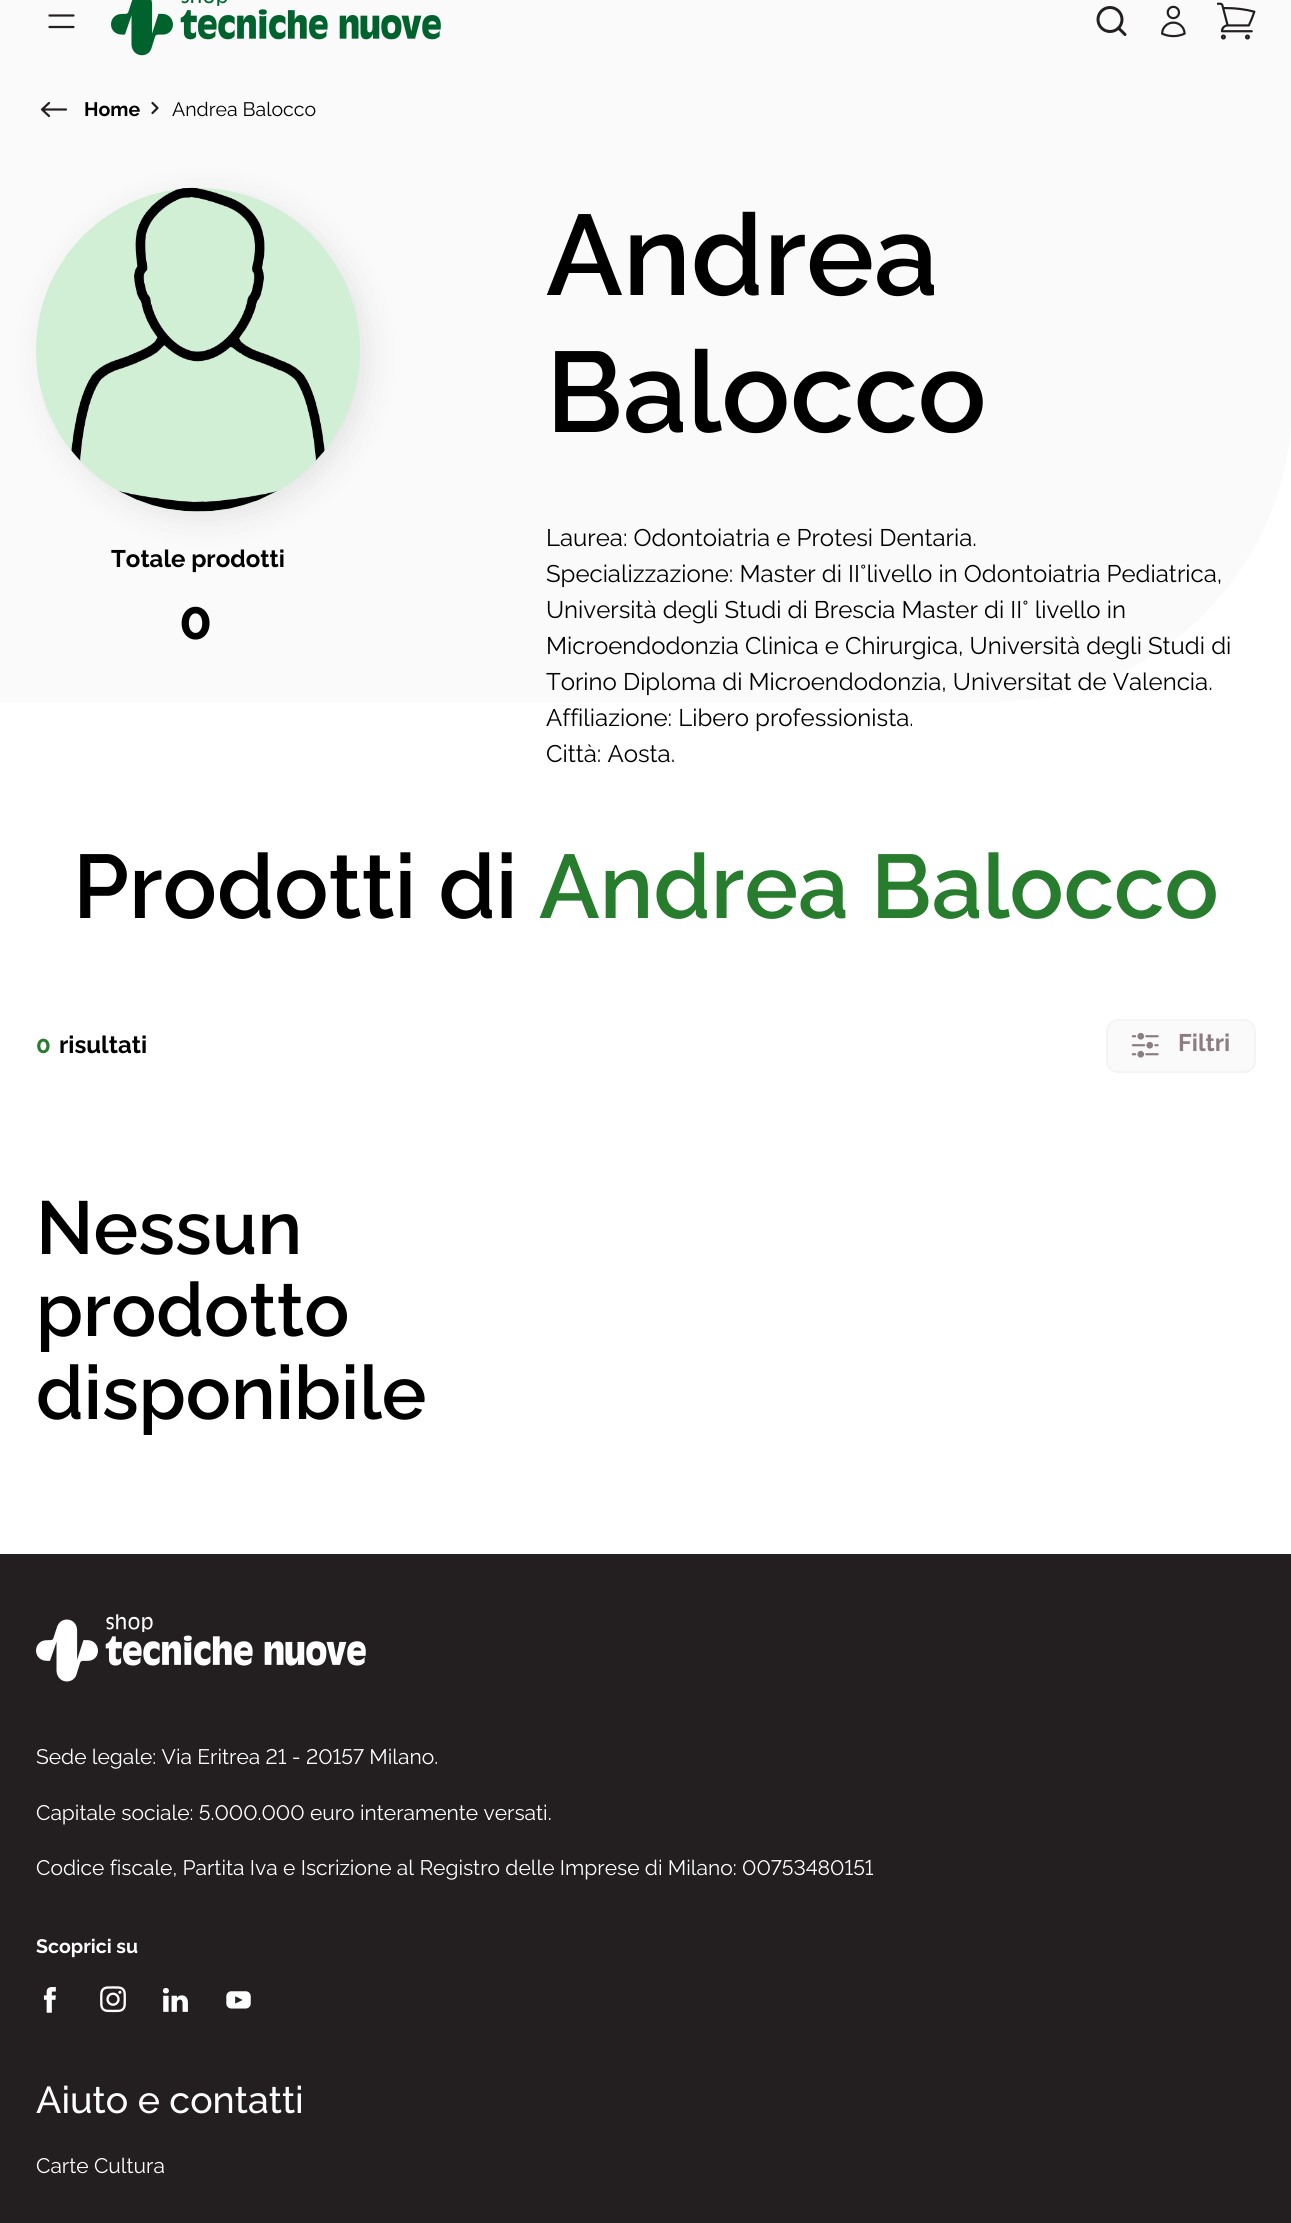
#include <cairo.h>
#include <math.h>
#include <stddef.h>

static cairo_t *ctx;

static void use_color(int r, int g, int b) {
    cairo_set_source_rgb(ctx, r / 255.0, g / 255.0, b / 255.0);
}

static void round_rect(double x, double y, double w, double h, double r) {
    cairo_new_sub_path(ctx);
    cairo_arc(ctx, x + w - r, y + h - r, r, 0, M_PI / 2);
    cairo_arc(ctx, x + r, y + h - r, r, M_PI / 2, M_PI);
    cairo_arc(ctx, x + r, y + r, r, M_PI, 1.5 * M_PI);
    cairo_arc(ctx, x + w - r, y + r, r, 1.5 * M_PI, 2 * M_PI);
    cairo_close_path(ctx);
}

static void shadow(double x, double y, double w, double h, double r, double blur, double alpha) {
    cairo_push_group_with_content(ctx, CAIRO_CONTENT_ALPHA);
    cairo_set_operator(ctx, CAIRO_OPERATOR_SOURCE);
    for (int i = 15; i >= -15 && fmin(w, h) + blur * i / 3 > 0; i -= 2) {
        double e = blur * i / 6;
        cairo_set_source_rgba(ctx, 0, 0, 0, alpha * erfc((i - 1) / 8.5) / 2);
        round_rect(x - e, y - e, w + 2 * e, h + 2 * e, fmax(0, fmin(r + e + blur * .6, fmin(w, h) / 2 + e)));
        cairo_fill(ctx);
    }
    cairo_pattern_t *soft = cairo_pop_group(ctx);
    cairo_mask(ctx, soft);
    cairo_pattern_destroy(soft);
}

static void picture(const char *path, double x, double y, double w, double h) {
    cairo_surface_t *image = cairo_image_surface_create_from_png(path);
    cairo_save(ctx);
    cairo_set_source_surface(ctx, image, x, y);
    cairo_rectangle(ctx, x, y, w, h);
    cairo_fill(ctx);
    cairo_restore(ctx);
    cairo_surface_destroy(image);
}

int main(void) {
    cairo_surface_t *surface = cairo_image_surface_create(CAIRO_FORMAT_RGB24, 1291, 2223);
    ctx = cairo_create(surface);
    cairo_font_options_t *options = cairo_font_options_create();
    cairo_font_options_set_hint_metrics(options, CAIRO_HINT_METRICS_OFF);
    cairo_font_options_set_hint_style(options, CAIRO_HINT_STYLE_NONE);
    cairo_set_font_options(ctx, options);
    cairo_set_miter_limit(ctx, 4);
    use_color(255, 255, 255);
    cairo_paint(ctx);
    use_color(250, 250, 250);
    cairo_new_path(ctx);
    cairo_move_to(ctx, 0, -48);
    cairo_line_to(ctx, 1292, -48);
    cairo_line_to(ctx, 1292, 402);
    cairo_curve_to(ctx, 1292, 567.5, 1157.5, 702, 992, 702);
    cairo_line_to(ctx, 0, 702);
    cairo_close_path(ctx);
    cairo_fill(ctx);
    cairo_new_path(ctx);
    cairo_move_to(ctx, 49.5, 15.5);
    cairo_line_to(ctx, 73.5, 15.5);
    cairo_move_to(ctx, 49.5, 27);
    cairo_line_to(ctx, 73.5, 27);
    use_color(35, 31, 32);
    cairo_set_line_width(ctx, 2.2);
    cairo_set_line_cap(ctx, CAIRO_LINE_CAP_ROUND);
    cairo_stroke(ctx);
    picture("img1.png", 111, 0, 330, 56);
    cairo_arc(ctx, 1110, 19.5, 12, 0, 2 * M_PI);
    cairo_set_line_width(ctx, 3);
    cairo_set_line_cap(ctx, CAIRO_LINE_CAP_BUTT);
    cairo_stroke(ctx);
    cairo_new_path(ctx);
    cairo_move_to(ctx, 1125, 34.5);
    cairo_line_to(ctx, 1118.5, 28);
    cairo_set_line_cap(ctx, CAIRO_LINE_CAP_ROUND);
    cairo_set_line_join(ctx, CAIRO_LINE_JOIN_ROUND);
    cairo_stroke(ctx);
    picture("img2.png", 1161, 5, 25, 33);
    picture("img3.png", 1217, 2, 39, 38);
    cairo_new_path(ctx);
    cairo_move_to(ctx, 49, 116);
    cairo_line_to(ctx, 42, 109.5);
    cairo_move_to(ctx, 42, 109.5);
    cairo_line_to(ctx, 49, 103);
    cairo_move_to(ctx, 42, 109.5);
    cairo_line_to(ctx, 66, 109.5);
    cairo_set_line_width(ctx, 2.2);
    cairo_stroke(ctx);
    cairo_select_font_face(ctx, "Raleway", CAIRO_FONT_SLANT_NORMAL, CAIRO_FONT_WEIGHT_BOLD);
    cairo_set_font_size(ctx, 19.5);
    use_color(0, 0, 0);
    cairo_move_to(ctx, 84, 116);
    cairo_show_text(ctx, "Home");
    cairo_new_path(ctx);
    cairo_move_to(ctx, 157.5, 108);
    cairo_line_to(ctx, 152.5, 103);
    cairo_move_to(ctx, 157.5, 108);
    cairo_line_to(ctx, 152.5, 113);
    use_color(35, 31, 32);
    cairo_stroke(ctx);
    cairo_select_font_face(ctx, "Raleway", CAIRO_FONT_SLANT_NORMAL, CAIRO_FONT_WEIGHT_NORMAL);
    use_color(0, 0, 0);
    cairo_move_to(ctx, 172, 116);
    cairo_show_text(ctx, "Andrea Balocco");
    cairo_select_font_face(ctx, "Raleway SemiBold", CAIRO_FONT_SLANT_NORMAL, CAIRO_FONT_WEIGHT_NORMAL);
    cairo_set_font_size(ctx, 114);
    cairo_move_to(ctx, 546, 295);
    cairo_show_text(ctx, "Andrea");
    cairo_move_to(ctx, 546, 432);
    cairo_show_text(ctx, "Balocco");
    use_color(35, 31, 32);
    shadow(44, 195, 324, 324, 162, 15, 0.1);
    use_color(209, 239, 212);
    cairo_arc(ctx, 198, 350, 162, 0, 2 * M_PI);
    cairo_fill(ctx);
    picture("img4.png", 71, 187, 254, 325);
    cairo_select_font_face(ctx, "Raleway", CAIRO_FONT_SLANT_NORMAL, CAIRO_FONT_WEIGHT_BOLD);
    cairo_set_font_size(ctx, 24);
    use_color(0, 0, 0);
    cairo_move_to(ctx, 111, 567);
    cairo_show_text(ctx, "Totale prodotti");
    cairo_set_font_size(ctx, 54);
    cairo_move_to(ctx, 179, 639);
    cairo_show_text(ctx, "0");
    cairo_select_font_face(ctx, "Raleway", CAIRO_FONT_SLANT_NORMAL, CAIRO_FONT_WEIGHT_NORMAL);
    cairo_set_font_size(ctx, 24);
    cairo_move_to(ctx, 546, 546);
    cairo_show_text(ctx, "Laurea: Odontoiatria e Protesi Dentaria.");
    cairo_move_to(ctx, 546, 582);
    cairo_show_text(ctx, "Specializzazione: Master di II°livello in Odontoiatria Pediatrica,");
    cairo_move_to(ctx, 546, 618);
    cairo_show_text(ctx, "Università degli Studi di Brescia Master di II° livello in");
    cairo_move_to(ctx, 546, 654);
    cairo_show_text(ctx, "Microendodonzia Clinica e Chirurgica, Università degli Studi di");
    cairo_move_to(ctx, 546, 690);
    cairo_show_text(ctx, "Torino Diploma di Microendodonzia, Universitat de Valencia.");
    cairo_move_to(ctx, 546, 726);
    cairo_show_text(ctx, "Affiliazione: Libero professionista.");
    cairo_move_to(ctx, 546, 762);
    cairo_show_text(ctx, "Città: Aosta.");
    cairo_select_font_face(ctx, "Raleway SemiBold", CAIRO_FONT_SLANT_NORMAL, CAIRO_FONT_WEIGHT_NORMAL);
    cairo_set_font_size(ctx, 90);
    cairo_move_to(ctx, 73, 918);
    cairo_show_text(ctx, "Prodotti di");
    use_color(40, 124, 45);
    cairo_move_to(ctx, 539, 918);
    cairo_show_text(ctx, "Andrea Balocco");
    cairo_select_font_face(ctx, "Raleway", CAIRO_FONT_SLANT_NORMAL, CAIRO_FONT_WEIGHT_BOLD);
    cairo_set_font_size(ctx, 24);
    cairo_move_to(ctx, 36, 1053);
    cairo_show_text(ctx, "0");
    use_color(0, 0, 0);
    cairo_move_to(ctx, 59, 1053);
    cairo_show_text(ctx, "risultati");
    use_color(250, 250, 250);
    round_rect(1107, 1020, 148, 52, 11);
    cairo_fill_preserve(ctx);
    use_color(245, 244, 244);
    cairo_set_line_width(ctx, 2);
    cairo_set_line_cap(ctx, CAIRO_LINE_CAP_BUTT);
    cairo_set_line_join(ctx, CAIRO_LINE_JOIN_MITER);
    cairo_stroke(ctx);
    picture("img5.png", 1131, 1032, 28, 26);
    use_color(140, 125, 129);
    cairo_move_to(ctx, 1178, 1051);
    cairo_show_text(ctx, "Filtri");
    cairo_select_font_face(ctx, "Raleway SemiBold", CAIRO_FONT_SLANT_NORMAL, CAIRO_FONT_WEIGHT_NORMAL);
    cairo_set_font_size(ctx, 75);
    use_color(0, 0, 0);
    cairo_move_to(ctx, 36, 1254);
    cairo_show_text(ctx, "Nessun");
    cairo_move_to(ctx, 36, 1336);
    cairo_show_text(ctx, "prodotto");
    cairo_move_to(ctx, 36, 1419);
    cairo_show_text(ctx, "disponibile");
    use_color(35, 31, 32);
    cairo_rectangle(ctx, 0, 1554, 1291, 669);
    cairo_fill(ctx);
    picture("img6.png", 36, 1614, 330, 68);
    cairo_select_font_face(ctx, "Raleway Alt", CAIRO_FONT_SLANT_NORMAL, CAIRO_FONT_WEIGHT_NORMAL);
    cairo_set_font_size(ctx, 21);
    use_color(255, 255, 255);
    cairo_move_to(ctx, 36, 1764);
    cairo_show_text(ctx, "Sede legale: Via Eritrea 21 - 20157 Milano.");
    cairo_move_to(ctx, 36, 1820);
    cairo_show_text(ctx, "Capitale sociale: 5.000.000 euro interamente versati.");
    cairo_move_to(ctx, 36, 1875);
    cairo_show_text(ctx, "Codice fiscale, Partita Iva e Iscrizione al Registro delle Imprese di Milano: 00753480151");
    cairo_select_font_face(ctx, "Raleway", CAIRO_FONT_SLANT_NORMAL, CAIRO_FONT_WEIGHT_BOLD);
    cairo_set_font_size(ctx, 19.5);
    cairo_move_to(ctx, 36, 1953);
    cairo_show_text(ctx, "Scoprici su");
    picture("img7.png", 43, 1987, 13, 26);
    picture("img8.png", 100, 1986, 26, 27);
    picture("img9.png", 162, 1988, 26, 24);
    picture("img10.png", 226, 1991, 25, 18);
    cairo_select_font_face(ctx, "Raleway Medium", CAIRO_FONT_SLANT_NORMAL, CAIRO_FONT_WEIGHT_NORMAL);
    cairo_set_font_size(ctx, 37.5);
    cairo_move_to(ctx, 36, 2113);
    cairo_show_text(ctx, "Aiuto e contatti");
    cairo_select_font_face(ctx, "Raleway", CAIRO_FONT_SLANT_NORMAL, CAIRO_FONT_WEIGHT_NORMAL);
    cairo_set_font_size(ctx, 21);
    cairo_move_to(ctx, 36, 2173);
    cairo_show_text(ctx, "Carte Cultura");
    cairo_surface_write_to_png(surface, "result.png");
    cairo_font_options_destroy(options);
    cairo_destroy(ctx);
    cairo_surface_destroy(surface);
    return 0;
}
